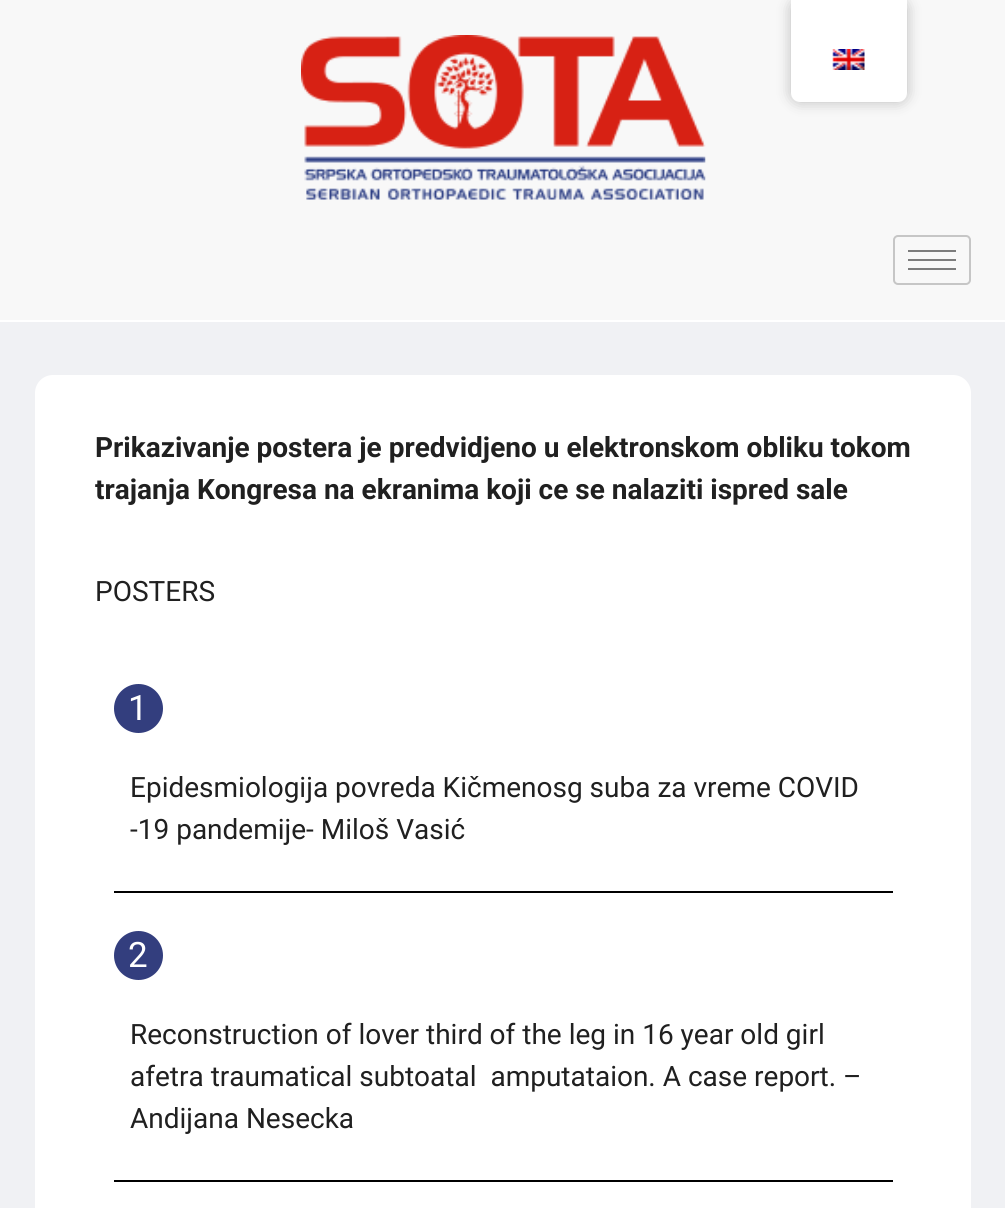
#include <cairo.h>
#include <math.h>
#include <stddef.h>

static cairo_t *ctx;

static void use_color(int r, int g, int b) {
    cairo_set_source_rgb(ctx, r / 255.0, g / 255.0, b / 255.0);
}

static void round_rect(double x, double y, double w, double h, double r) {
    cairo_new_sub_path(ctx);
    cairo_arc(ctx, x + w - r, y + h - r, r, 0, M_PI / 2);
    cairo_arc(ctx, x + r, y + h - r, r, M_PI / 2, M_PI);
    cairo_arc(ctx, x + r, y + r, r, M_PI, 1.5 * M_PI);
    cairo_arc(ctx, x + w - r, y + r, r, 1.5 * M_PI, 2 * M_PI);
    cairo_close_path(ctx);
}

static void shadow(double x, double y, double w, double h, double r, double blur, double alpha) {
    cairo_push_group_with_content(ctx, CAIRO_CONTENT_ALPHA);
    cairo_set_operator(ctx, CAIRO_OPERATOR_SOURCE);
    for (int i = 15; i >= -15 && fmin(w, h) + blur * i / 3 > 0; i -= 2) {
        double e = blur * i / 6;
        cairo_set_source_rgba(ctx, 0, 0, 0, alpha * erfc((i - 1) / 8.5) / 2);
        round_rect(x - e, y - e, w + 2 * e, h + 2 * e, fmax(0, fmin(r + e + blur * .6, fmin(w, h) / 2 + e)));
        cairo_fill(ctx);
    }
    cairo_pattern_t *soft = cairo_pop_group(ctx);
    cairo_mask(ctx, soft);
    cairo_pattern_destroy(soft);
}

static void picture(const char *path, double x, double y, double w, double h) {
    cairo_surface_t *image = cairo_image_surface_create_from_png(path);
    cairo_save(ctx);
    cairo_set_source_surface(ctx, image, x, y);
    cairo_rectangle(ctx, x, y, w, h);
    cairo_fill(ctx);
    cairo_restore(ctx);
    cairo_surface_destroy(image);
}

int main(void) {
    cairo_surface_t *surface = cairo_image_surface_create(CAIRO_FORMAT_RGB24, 1005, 1208);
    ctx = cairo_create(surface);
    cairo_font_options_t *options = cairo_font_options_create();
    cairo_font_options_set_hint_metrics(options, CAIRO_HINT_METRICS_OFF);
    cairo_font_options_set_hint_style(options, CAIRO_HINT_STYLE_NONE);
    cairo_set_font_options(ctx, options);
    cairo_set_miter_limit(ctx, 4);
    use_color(255, 255, 255);
    cairo_paint(ctx);
    use_color(248, 248, 248);
    cairo_rectangle(ctx, 0, 0, 1005, 320);
    cairo_fill(ctx);
    picture("img1.png", 301, 35, 405, 165);
    round_rect(894, 236, 76, 48, 4);
    use_color(198, 198, 198);
    cairo_stroke(ctx);
    use_color(124, 124, 124);
    cairo_rectangle(ctx, 908, 250, 48, 2);
    cairo_fill(ctx);
    cairo_rectangle(ctx, 908, 259, 48, 2);
    cairo_fill(ctx);
    cairo_rectangle(ctx, 908, 268, 48, 2);
    cairo_fill(ctx);
    use_color(0, 0, 0);
    shadow(791, 0, 116, 102, 9, 7, 0.25);
    use_color(255, 255, 255);
    cairo_new_path(ctx);
    cairo_move_to(ctx, 791, 0);
    cairo_line_to(ctx, 907, 0);
    cairo_line_to(ctx, 907, 93);
    cairo_curve_to(ctx, 907, 98, 903, 102, 898, 102);
    cairo_line_to(ctx, 800, 102);
    cairo_curve_to(ctx, 795, 102, 791, 98, 791, 93);
    cairo_close_path(ctx);
    cairo_fill(ctx);
    picture("img2.png", 832, 49, 33, 21);
    use_color(240, 241, 244);
    cairo_rectangle(ctx, 0, 322, 1005, 886);
    cairo_fill(ctx);
    use_color(255, 255, 255);
    round_rect(35, 375, 936, 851, 18);
    cairo_fill(ctx);
    cairo_select_font_face(ctx, "Roboto", CAIRO_FONT_SLANT_NORMAL, CAIRO_FONT_WEIGHT_BOLD);
    cairo_set_font_size(ctx, 28);
    use_color(32, 32, 32);
    cairo_move_to(ctx, 95, 457);
    cairo_show_text(ctx, "Prikazivanje postera je predvidjeno u elektronskom obliku tokom");
    cairo_move_to(ctx, 95, 499);
    cairo_show_text(ctx, "trajanja Kongresa na ekranima koji ce se nalaziti ispred sale");
    cairo_select_font_face(ctx, "Roboto", CAIRO_FONT_SLANT_NORMAL, CAIRO_FONT_WEIGHT_NORMAL);
    cairo_move_to(ctx, 95, 601);
    cairo_show_text(ctx, "POSTERS");
    use_color(51, 62, 126);
    cairo_new_path(ctx);
    cairo_arc(ctx, 138.5, 708.5, 24.5, 0, 2 * M_PI);
    cairo_fill(ctx);
    cairo_set_font_size(ctx, 35);
    use_color(255, 255, 255);
    cairo_move_to(ctx, 128, 720);
    cairo_show_text(ctx, "1");
    cairo_set_font_size(ctx, 28);
    use_color(32, 32, 32);
    cairo_move_to(ctx, 130, 797);
    cairo_show_text(ctx, "Epidesmiologija povreda Kičmenosg suba za vreme COVID");
    cairo_move_to(ctx, 130, 839);
    cairo_show_text(ctx, "-19 pandemije- Miloš Vasić");
    use_color(0, 0, 0);
    cairo_rectangle(ctx, 114, 891, 779, 2);
    cairo_fill(ctx);
    use_color(51, 62, 126);
    cairo_arc(ctx, 138.5, 955.5, 24.5, 0, 2 * M_PI);
    cairo_fill(ctx);
    cairo_set_font_size(ctx, 35);
    use_color(255, 255, 255);
    cairo_move_to(ctx, 128, 967);
    cairo_show_text(ctx, "2");
    cairo_set_font_size(ctx, 28);
    use_color(32, 32, 32);
    cairo_move_to(ctx, 130, 1044);
    cairo_show_text(ctx, "Reconstruction of lover third of the leg in 16 year old girl");
    cairo_move_to(ctx, 130, 1086);
    cairo_show_text(ctx, "afetra traumatical subtoatal  amputataion. A case report. –");
    cairo_move_to(ctx, 130, 1128);
    cairo_show_text(ctx, "Andijana Nesecka");
    use_color(0, 0, 0);
    cairo_rectangle(ctx, 114, 1180, 779, 2);
    cairo_fill(ctx);
    cairo_surface_write_to_png(surface, "result.png");
    cairo_font_options_destroy(options);
    cairo_destroy(ctx);
    cairo_surface_destroy(surface);
    return 0;
}
